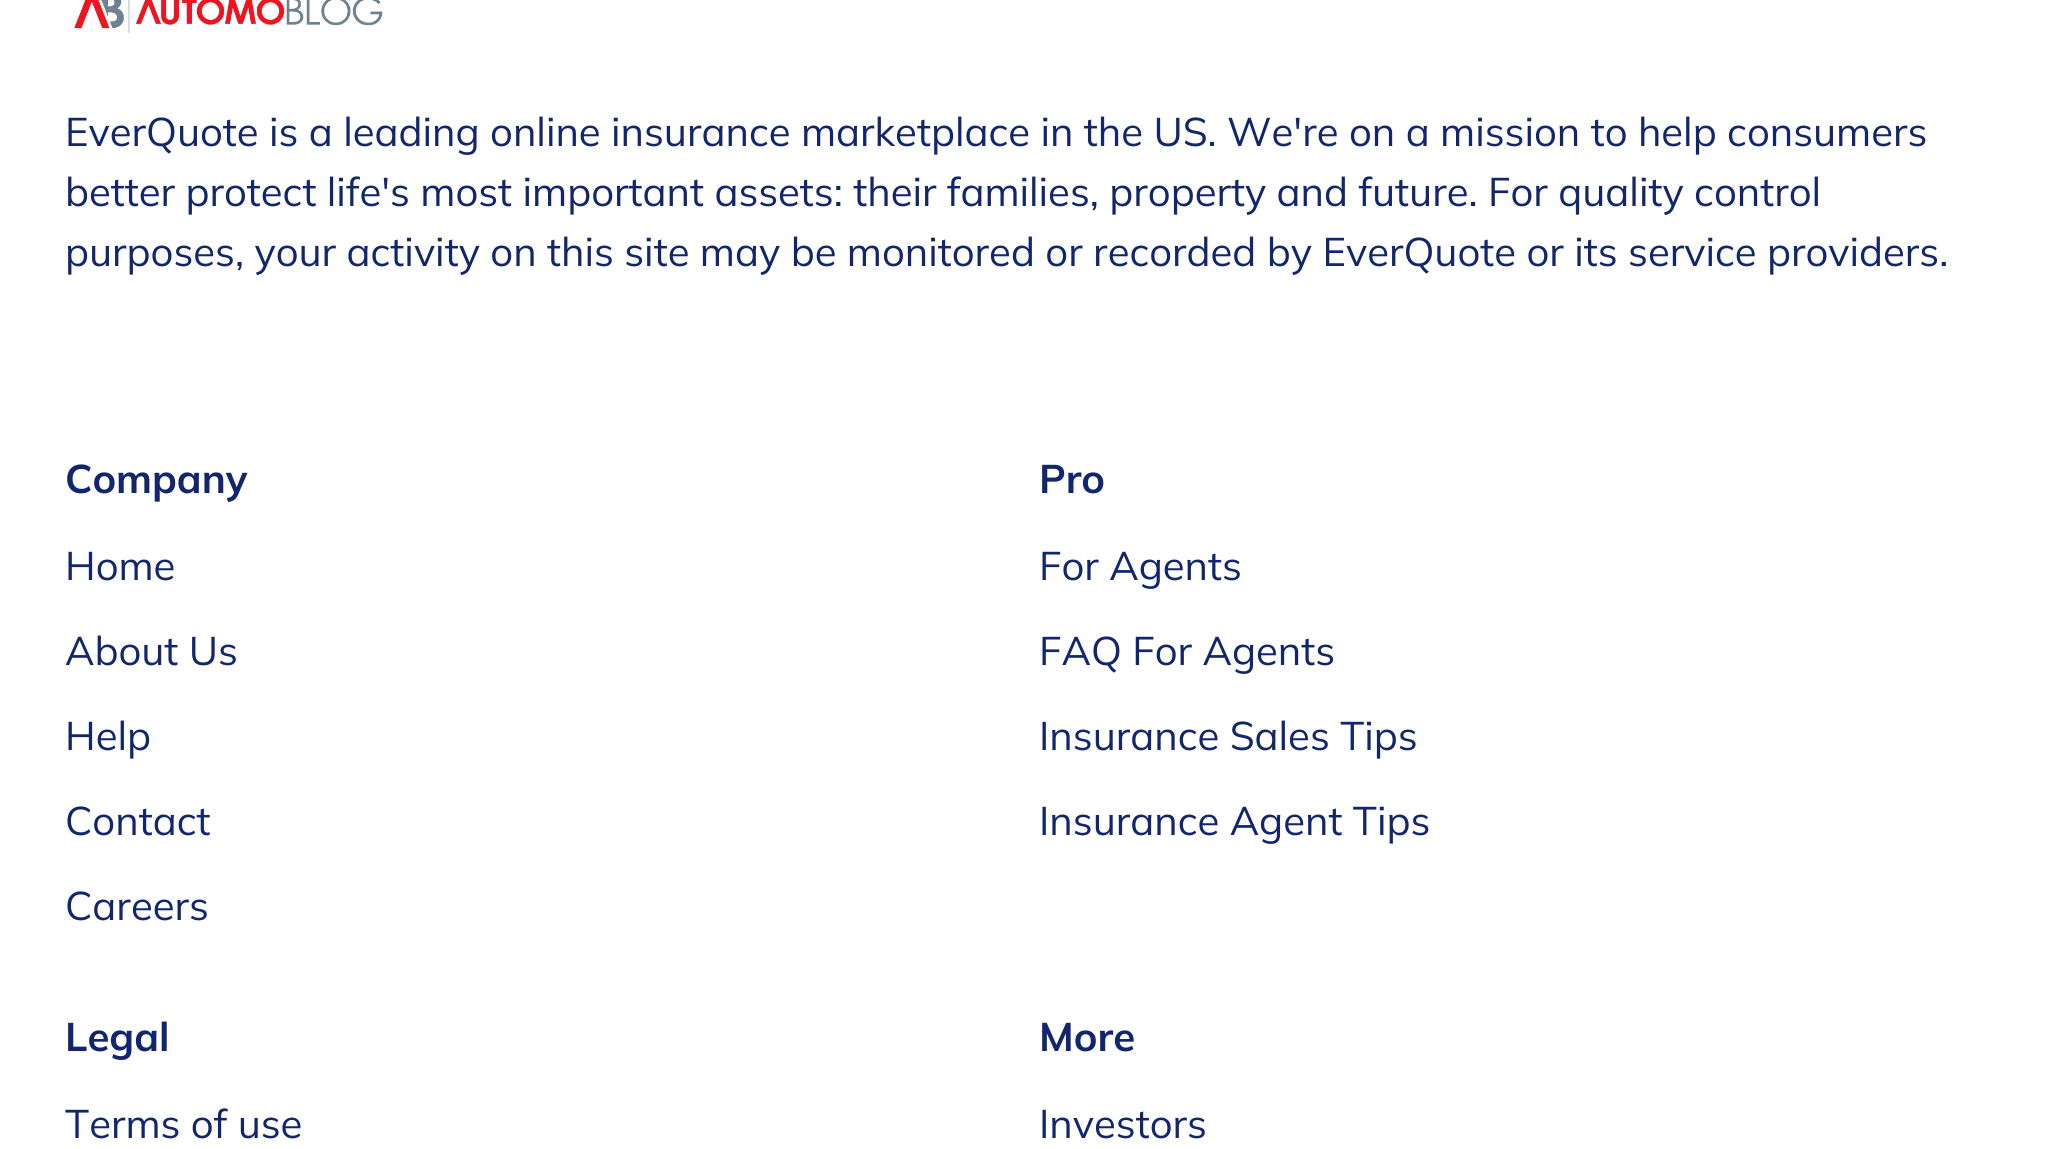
#include <cairo.h>
#include <math.h>
#include <stddef.h>

static cairo_t *ctx;

static void use_color(int r, int g, int b) {
    cairo_set_source_rgb(ctx, r / 255.0, g / 255.0, b / 255.0);
}

static void picture(const char *path, double x, double y, double w, double h) {
    cairo_surface_t *image = cairo_image_surface_create_from_png(path);
    cairo_save(ctx);
    cairo_set_source_surface(ctx, image, x, y);
    cairo_rectangle(ctx, x, y, w, h);
    cairo_fill(ctx);
    cairo_restore(ctx);
    cairo_surface_destroy(image);
}

int main(void) {
    cairo_surface_t *surface = cairo_image_surface_create(CAIRO_FORMAT_RGB24, 2056, 1149);
    ctx = cairo_create(surface);
    cairo_font_options_t *options = cairo_font_options_create();
    cairo_font_options_set_hint_metrics(options, CAIRO_HINT_METRICS_OFF);
    cairo_font_options_set_hint_style(options, CAIRO_HINT_STYLE_NONE);
    cairo_set_font_options(ctx, options);
    cairo_set_miter_limit(ctx, 4);
    use_color(255, 255, 255);
    cairo_paint(ctx);
    picture("img1.png", 74, 0, 309, 33);
    cairo_select_font_face(ctx, "Mulish", CAIRO_FONT_SLANT_NORMAL, CAIRO_FONT_WEIGHT_NORMAL);
    cairo_set_font_size(ctx, 40);
    use_color(18, 38, 109);
    cairo_move_to(ctx, 65, 146);
    cairo_show_text(ctx, "EverQuote is a leading online insurance marketplace in the US. We're on a mission to help consumers");
    cairo_move_to(ctx, 65, 206);
    cairo_show_text(ctx, "better protect life's most important assets: their families, property and future. For quality control");
    cairo_move_to(ctx, 65, 266);
    cairo_show_text(ctx, "purposes, your activity on this site may be monitored or recorded by EverQuote or its service providers.");
    cairo_select_font_face(ctx, "Mulish", CAIRO_FONT_SLANT_NORMAL, CAIRO_FONT_WEIGHT_BOLD);
    cairo_move_to(ctx, 65, 493);
    cairo_show_text(ctx, "Company");
    cairo_select_font_face(ctx, "Mulish", CAIRO_FONT_SLANT_NORMAL, CAIRO_FONT_WEIGHT_NORMAL);
    cairo_move_to(ctx, 65, 580);
    cairo_show_text(ctx, "Home");
    cairo_move_to(ctx, 65, 665);
    cairo_show_text(ctx, "About Us");
    cairo_move_to(ctx, 65, 750);
    cairo_show_text(ctx, "Help");
    cairo_move_to(ctx, 65, 835);
    cairo_show_text(ctx, "Contact");
    cairo_move_to(ctx, 65, 920);
    cairo_show_text(ctx, "Careers");
    cairo_select_font_face(ctx, "Mulish", CAIRO_FONT_SLANT_NORMAL, CAIRO_FONT_WEIGHT_BOLD);
    cairo_move_to(ctx, 1039, 493);
    cairo_show_text(ctx, "Pro");
    cairo_select_font_face(ctx, "Mulish", CAIRO_FONT_SLANT_NORMAL, CAIRO_FONT_WEIGHT_NORMAL);
    cairo_move_to(ctx, 1039, 580);
    cairo_show_text(ctx, "For Agents");
    cairo_move_to(ctx, 1039, 665);
    cairo_show_text(ctx, "FAQ For Agents");
    cairo_move_to(ctx, 1039, 750);
    cairo_show_text(ctx, "Insurance Sales Tips");
    cairo_move_to(ctx, 1039, 835);
    cairo_show_text(ctx, "Insurance Agent Tips");
    cairo_select_font_face(ctx, "Mulish", CAIRO_FONT_SLANT_NORMAL, CAIRO_FONT_WEIGHT_BOLD);
    cairo_move_to(ctx, 65, 1051);
    cairo_show_text(ctx, "Legal");
    cairo_select_font_face(ctx, "Mulish", CAIRO_FONT_SLANT_NORMAL, CAIRO_FONT_WEIGHT_NORMAL);
    cairo_move_to(ctx, 65, 1138);
    cairo_show_text(ctx, "Terms of use");
    cairo_select_font_face(ctx, "Mulish", CAIRO_FONT_SLANT_NORMAL, CAIRO_FONT_WEIGHT_BOLD);
    cairo_move_to(ctx, 1039, 1051);
    cairo_show_text(ctx, "More");
    cairo_select_font_face(ctx, "Mulish", CAIRO_FONT_SLANT_NORMAL, CAIRO_FONT_WEIGHT_NORMAL);
    cairo_move_to(ctx, 1039, 1138);
    cairo_show_text(ctx, "Investors");
    cairo_surface_write_to_png(surface, "result.png");
    cairo_font_options_destroy(options);
    cairo_destroy(ctx);
    cairo_surface_destroy(surface);
    return 0;
}
